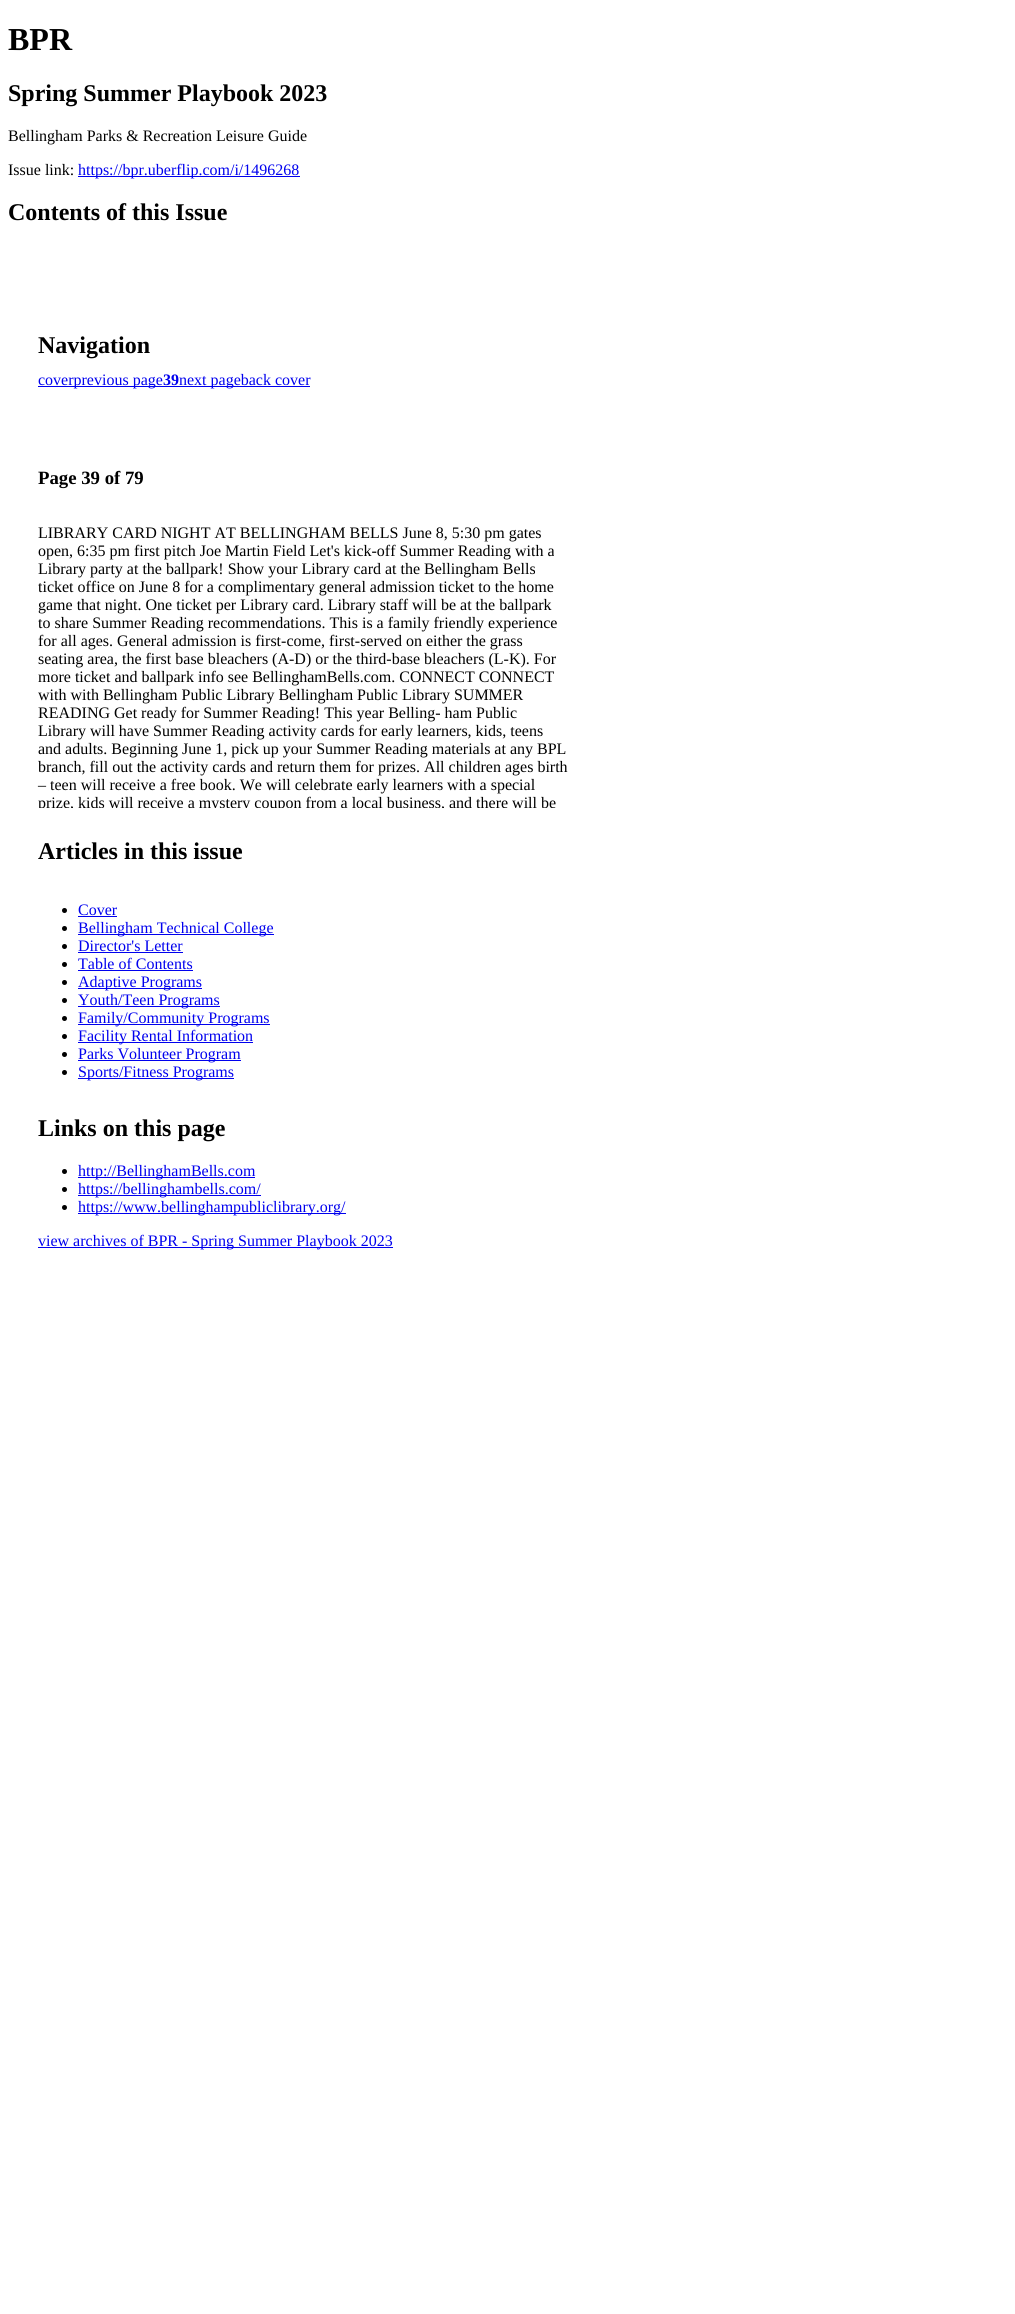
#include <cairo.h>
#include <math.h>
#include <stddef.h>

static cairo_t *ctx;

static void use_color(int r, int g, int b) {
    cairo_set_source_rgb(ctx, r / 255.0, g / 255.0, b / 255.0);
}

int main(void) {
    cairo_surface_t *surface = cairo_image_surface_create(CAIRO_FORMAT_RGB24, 1015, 2314);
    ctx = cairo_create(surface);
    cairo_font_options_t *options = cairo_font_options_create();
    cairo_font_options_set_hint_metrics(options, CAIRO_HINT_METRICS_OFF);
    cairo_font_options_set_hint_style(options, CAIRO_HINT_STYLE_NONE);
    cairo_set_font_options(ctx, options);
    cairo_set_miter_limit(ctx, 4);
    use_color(255, 255, 255);
    cairo_paint(ctx);
    cairo_select_font_face(ctx, "Liberation Serif", CAIRO_FONT_SLANT_NORMAL, CAIRO_FONT_WEIGHT_BOLD);
    cairo_set_font_size(ctx, 32);
    use_color(0, 0, 0);
    cairo_move_to(ctx, 8, 50);
    cairo_show_text(ctx, "BPR");
    cairo_set_font_size(ctx, 24);
    cairo_move_to(ctx, 8, 101);
    cairo_show_text(ctx, "Spring Summer Playbook 2023");
    cairo_select_font_face(ctx, "Liberation Serif", CAIRO_FONT_SLANT_NORMAL, CAIRO_FONT_WEIGHT_NORMAL);
    cairo_set_font_size(ctx, 16);
    cairo_move_to(ctx, 8, 141);
    cairo_show_text(ctx, "Bellingham Parks & Recreation Leisure Guide");
    cairo_move_to(ctx, 8, 175);
    cairo_show_text(ctx, "Issue link:");
    use_color(0, 0, 238);
    cairo_rectangle(ctx, 78, 176, 222, 1);
    cairo_fill(ctx);
    cairo_move_to(ctx, 78, 175);
    cairo_show_text(ctx, "https://bpr.uberflip.com/i/1496268");
    cairo_select_font_face(ctx, "Liberation Serif", CAIRO_FONT_SLANT_NORMAL, CAIRO_FONT_WEIGHT_BOLD);
    cairo_set_font_size(ctx, 24);
    use_color(0, 0, 0);
    cairo_move_to(ctx, 8, 220);
    cairo_show_text(ctx, "Contents of this Issue");
    cairo_move_to(ctx, 38, 353);
    cairo_show_text(ctx, "Navigation");
    use_color(0, 0, 238);
    cairo_rectangle(ctx, 38, 386, 272, 1);
    cairo_fill(ctx);
    cairo_select_font_face(ctx, "Liberation Serif", CAIRO_FONT_SLANT_NORMAL, CAIRO_FONT_WEIGHT_NORMAL);
    cairo_set_font_size(ctx, 16);
    cairo_move_to(ctx, 38, 385);
    cairo_show_text(ctx, "coverprevious page");
    cairo_select_font_face(ctx, "Liberation Serif", CAIRO_FONT_SLANT_NORMAL, CAIRO_FONT_WEIGHT_BOLD);
    cairo_move_to(ctx, 163, 385);
    cairo_show_text(ctx, "39");
    cairo_select_font_face(ctx, "Liberation Serif", CAIRO_FONT_SLANT_NORMAL, CAIRO_FONT_WEIGHT_NORMAL);
    cairo_move_to(ctx, 179, 385);
    cairo_show_text(ctx, "next pageback cover");
    cairo_select_font_face(ctx, "Liberation Serif", CAIRO_FONT_SLANT_NORMAL, CAIRO_FONT_WEIGHT_BOLD);
    cairo_set_font_size(ctx, 18.75);
    use_color(0, 0, 0);
    cairo_move_to(ctx, 38, 484);
    cairo_show_text(ctx, "Page 39 of 79");
    cairo_select_font_face(ctx, "Liberation Serif", CAIRO_FONT_SLANT_NORMAL, CAIRO_FONT_WEIGHT_NORMAL);
    cairo_set_font_size(ctx, 16);
    cairo_move_to(ctx, 38, 538);
    cairo_show_text(ctx, "LIBRARY CARD NIGHT AT BELLINGHAM BELLS June 8, 5:30 pm gates");
    cairo_move_to(ctx, 38, 556);
    cairo_show_text(ctx, "open, 6:35 pm first pitch Joe Martin Field Let's kick-off Summer Reading with a");
    cairo_move_to(ctx, 38, 574);
    cairo_show_text(ctx, "Library party at the ballpark! Show your Library card at the Bellingham Bells");
    cairo_move_to(ctx, 38, 592);
    cairo_show_text(ctx, "ticket office on June 8 for a complimentary general admission ticket to the home");
    cairo_move_to(ctx, 38, 610);
    cairo_show_text(ctx, "game that night. One ticket per Library card. Library staff will be at the ballpark");
    cairo_move_to(ctx, 38, 628);
    cairo_show_text(ctx, "to share Summer Reading recommendations. This is a family friendly experience");
    cairo_move_to(ctx, 38, 646);
    cairo_show_text(ctx, "for all ages. General admission is first-come, first-served on either the grass");
    cairo_move_to(ctx, 38, 664);
    cairo_show_text(ctx, "seating area, the first base bleachers (A-D) or the third-base bleachers (L-K). For");
    cairo_move_to(ctx, 38, 682);
    cairo_show_text(ctx, "more ticket and ballpark info see BellinghamBells.com. CONNECT CONNECT");
    cairo_move_to(ctx, 38, 700);
    cairo_show_text(ctx, "with with Bellingham Public Library Bellingham Public Library SUMMER");
    cairo_move_to(ctx, 38, 718);
    cairo_show_text(ctx, "READING Get ready for Summer Reading! This year Belling- ham Public");
    cairo_move_to(ctx, 38, 736);
    cairo_show_text(ctx, "Library will have Summer Reading activity cards for early learners, kids, teens");
    cairo_move_to(ctx, 38, 754);
    cairo_show_text(ctx, "and adults. Beginning June 1, pick up your Summer Reading materials at any BPL");
    cairo_move_to(ctx, 38, 772);
    cairo_show_text(ctx, "branch, fill out the activity cards and return them for prizes. All children ages birth");
    cairo_move_to(ctx, 38, 790);
    cairo_show_text(ctx, "– teen will receive a free book. We will celebrate early learners with a special");
    cairo_save(ctx);
    cairo_rectangle(ctx, 38, 508, 550, 300);
    cairo_clip(ctx);
    cairo_move_to(ctx, 38, 808);
    cairo_show_text(ctx, "prize, kids will receive a mystery coupon from a local business, and there will be");
    cairo_restore(ctx);
    cairo_select_font_face(ctx, "Liberation Serif", CAIRO_FONT_SLANT_NORMAL, CAIRO_FONT_WEIGHT_BOLD);
    cairo_set_font_size(ctx, 24);
    cairo_move_to(ctx, 38, 859);
    cairo_show_text(ctx, "Articles in this issue");
    cairo_new_path(ctx);
    cairo_arc(ctx, 64.5, 910.5, 2.5, 0, 2 * M_PI);
    cairo_fill(ctx);
    cairo_select_font_face(ctx, "Liberation Serif", CAIRO_FONT_SLANT_NORMAL, CAIRO_FONT_WEIGHT_NORMAL);
    cairo_set_font_size(ctx, 16);
    use_color(0, 0, 238);
    cairo_move_to(ctx, 78, 915);
    cairo_show_text(ctx, "Cover");
    cairo_rectangle(ctx, 78, 916, 39, 1);
    cairo_fill(ctx);
    use_color(0, 0, 0);
    cairo_arc(ctx, 64.5, 928.5, 2.5, 0, 2 * M_PI);
    cairo_fill(ctx);
    use_color(0, 0, 238);
    cairo_rectangle(ctx, 78, 934, 196, 1);
    cairo_fill(ctx);
    cairo_move_to(ctx, 78, 933);
    cairo_show_text(ctx, "Bellingham Technical College");
    use_color(0, 0, 0);
    cairo_new_path(ctx);
    cairo_arc(ctx, 64.5, 946.5, 2.5, 0, 2 * M_PI);
    cairo_fill(ctx);
    use_color(0, 0, 238);
    cairo_move_to(ctx, 78, 951);
    cairo_show_text(ctx, "Director's Letter");
    cairo_rectangle(ctx, 78, 952, 105, 1);
    cairo_fill(ctx);
    use_color(0, 0, 0);
    cairo_arc(ctx, 64.5, 964.5, 2.5, 0, 2 * M_PI);
    cairo_fill(ctx);
    use_color(0, 0, 238);
    cairo_move_to(ctx, 78, 969);
    cairo_show_text(ctx, "Table of Contents");
    cairo_rectangle(ctx, 78, 970, 115, 1);
    cairo_fill(ctx);
    use_color(0, 0, 0);
    cairo_arc(ctx, 64.5, 982.5, 2.5, 0, 2 * M_PI);
    cairo_fill(ctx);
    use_color(0, 0, 238);
    cairo_rectangle(ctx, 78, 988, 124, 1);
    cairo_fill(ctx);
    cairo_move_to(ctx, 78, 987);
    cairo_show_text(ctx, "Adaptive Programs");
    use_color(0, 0, 0);
    cairo_new_path(ctx);
    cairo_arc(ctx, 64.5, 1000.5, 2.5, 0, 2 * M_PI);
    cairo_fill(ctx);
    use_color(0, 0, 238);
    cairo_rectangle(ctx, 78, 1006, 142, 1);
    cairo_fill(ctx);
    cairo_move_to(ctx, 78, 1005);
    cairo_show_text(ctx, "Youth/Teen Programs");
    use_color(0, 0, 0);
    cairo_new_path(ctx);
    cairo_arc(ctx, 64.5, 1018.5, 2.5, 0, 2 * M_PI);
    cairo_fill(ctx);
    use_color(0, 0, 238);
    cairo_rectangle(ctx, 78, 1024, 192, 1);
    cairo_fill(ctx);
    cairo_move_to(ctx, 78, 1023);
    cairo_show_text(ctx, "Family/Community Programs");
    use_color(0, 0, 0);
    cairo_new_path(ctx);
    cairo_arc(ctx, 64.5, 1036.5, 2.5, 0, 2 * M_PI);
    cairo_fill(ctx);
    use_color(0, 0, 238);
    cairo_rectangle(ctx, 78, 1042, 175, 1);
    cairo_fill(ctx);
    cairo_move_to(ctx, 78, 1041);
    cairo_show_text(ctx, "Facility Rental Information");
    use_color(0, 0, 0);
    cairo_new_path(ctx);
    cairo_arc(ctx, 64.5, 1054.5, 2.5, 0, 2 * M_PI);
    cairo_fill(ctx);
    use_color(0, 0, 238);
    cairo_rectangle(ctx, 78, 1060, 163, 1);
    cairo_fill(ctx);
    cairo_move_to(ctx, 78, 1059);
    cairo_show_text(ctx, "Parks Volunteer Program");
    use_color(0, 0, 0);
    cairo_new_path(ctx);
    cairo_arc(ctx, 64.5, 1072.5, 2.5, 0, 2 * M_PI);
    cairo_fill(ctx);
    use_color(0, 0, 238);
    cairo_rectangle(ctx, 78, 1078, 156, 1);
    cairo_fill(ctx);
    cairo_move_to(ctx, 78, 1077);
    cairo_show_text(ctx, "Sports/Fitness Programs");
    cairo_select_font_face(ctx, "Liberation Serif", CAIRO_FONT_SLANT_NORMAL, CAIRO_FONT_WEIGHT_BOLD);
    cairo_set_font_size(ctx, 24);
    use_color(0, 0, 0);
    cairo_move_to(ctx, 38, 1136);
    cairo_show_text(ctx, "Links on this page");
    cairo_new_path(ctx);
    cairo_arc(ctx, 64.5, 1171.5, 2.5, 0, 2 * M_PI);
    cairo_fill(ctx);
    use_color(0, 0, 238);
    cairo_rectangle(ctx, 78, 1177, 177, 1);
    cairo_fill(ctx);
    cairo_select_font_face(ctx, "Liberation Serif", CAIRO_FONT_SLANT_NORMAL, CAIRO_FONT_WEIGHT_NORMAL);
    cairo_set_font_size(ctx, 16);
    cairo_move_to(ctx, 78, 1176);
    cairo_show_text(ctx, "http://BellinghamBells.com");
    use_color(0, 0, 0);
    cairo_new_path(ctx);
    cairo_arc(ctx, 64.5, 1189.5, 2.5, 0, 2 * M_PI);
    cairo_fill(ctx);
    use_color(0, 0, 238);
    cairo_rectangle(ctx, 78, 1195, 183, 1);
    cairo_fill(ctx);
    cairo_move_to(ctx, 78, 1194);
    cairo_show_text(ctx, "https://bellinghambells.com/");
    use_color(0, 0, 0);
    cairo_new_path(ctx);
    cairo_arc(ctx, 64.5, 1207.5, 2.5, 0, 2 * M_PI);
    cairo_fill(ctx);
    use_color(0, 0, 238);
    cairo_rectangle(ctx, 78, 1213, 268, 1);
    cairo_fill(ctx);
    cairo_move_to(ctx, 78, 1212);
    cairo_show_text(ctx, "https://www.bellinghampubliclibrary.org/");
    cairo_rectangle(ctx, 38, 1247, 355, 1);
    cairo_fill(ctx);
    cairo_move_to(ctx, 38, 1246);
    cairo_show_text(ctx, "view archives of BPR - Spring Summer Playbook 2023");
    cairo_surface_write_to_png(surface, "result.png");
    cairo_font_options_destroy(options);
    cairo_destroy(ctx);
    cairo_surface_destroy(surface);
    return 0;
}
